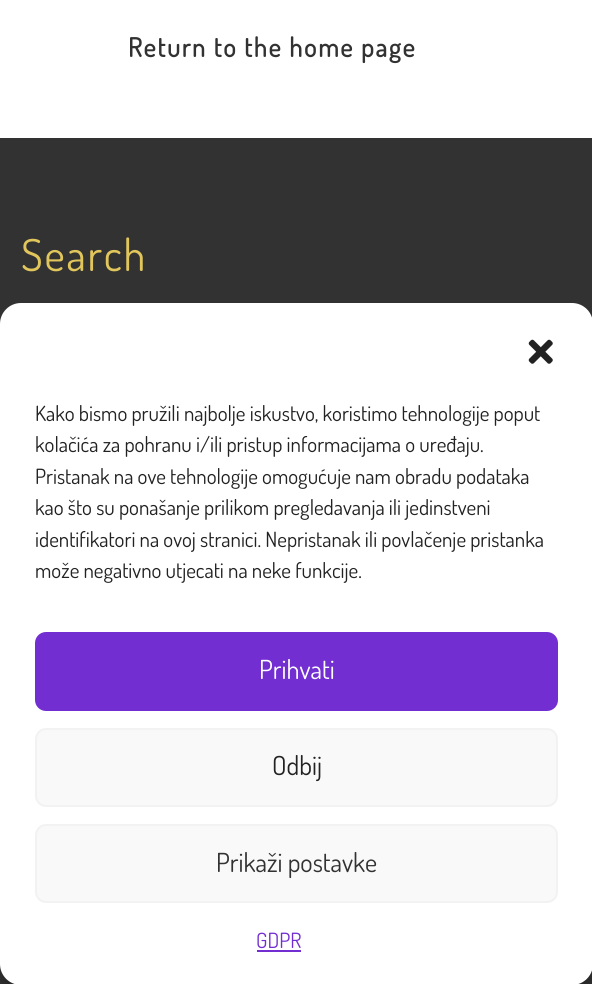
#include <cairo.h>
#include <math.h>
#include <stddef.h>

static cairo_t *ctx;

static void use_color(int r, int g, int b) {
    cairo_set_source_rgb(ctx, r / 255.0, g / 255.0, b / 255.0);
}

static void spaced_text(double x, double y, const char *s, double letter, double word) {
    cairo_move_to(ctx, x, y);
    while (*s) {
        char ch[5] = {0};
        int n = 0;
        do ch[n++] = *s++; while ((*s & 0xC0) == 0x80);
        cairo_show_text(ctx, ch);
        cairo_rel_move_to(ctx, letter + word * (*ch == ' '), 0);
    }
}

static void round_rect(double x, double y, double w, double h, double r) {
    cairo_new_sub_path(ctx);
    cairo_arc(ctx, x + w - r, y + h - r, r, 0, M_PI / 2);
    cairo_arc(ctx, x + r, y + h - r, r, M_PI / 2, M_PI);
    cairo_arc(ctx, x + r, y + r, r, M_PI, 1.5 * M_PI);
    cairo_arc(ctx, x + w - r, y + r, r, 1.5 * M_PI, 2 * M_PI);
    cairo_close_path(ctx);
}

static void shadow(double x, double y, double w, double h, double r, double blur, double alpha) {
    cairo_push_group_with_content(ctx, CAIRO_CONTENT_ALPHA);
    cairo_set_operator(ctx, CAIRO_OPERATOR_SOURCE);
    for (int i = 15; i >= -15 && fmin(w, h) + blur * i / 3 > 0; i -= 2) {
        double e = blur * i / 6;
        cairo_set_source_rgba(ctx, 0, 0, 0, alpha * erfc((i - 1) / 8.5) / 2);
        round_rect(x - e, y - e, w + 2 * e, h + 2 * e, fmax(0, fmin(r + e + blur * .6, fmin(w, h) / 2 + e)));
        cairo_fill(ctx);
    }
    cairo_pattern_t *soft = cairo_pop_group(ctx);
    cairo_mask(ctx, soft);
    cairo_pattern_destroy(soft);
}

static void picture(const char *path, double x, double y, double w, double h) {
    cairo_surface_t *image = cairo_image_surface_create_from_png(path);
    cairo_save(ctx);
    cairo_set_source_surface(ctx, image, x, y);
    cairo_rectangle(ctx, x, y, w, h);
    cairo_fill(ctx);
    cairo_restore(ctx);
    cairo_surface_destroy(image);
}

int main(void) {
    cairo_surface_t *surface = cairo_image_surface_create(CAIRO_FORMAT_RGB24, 592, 984);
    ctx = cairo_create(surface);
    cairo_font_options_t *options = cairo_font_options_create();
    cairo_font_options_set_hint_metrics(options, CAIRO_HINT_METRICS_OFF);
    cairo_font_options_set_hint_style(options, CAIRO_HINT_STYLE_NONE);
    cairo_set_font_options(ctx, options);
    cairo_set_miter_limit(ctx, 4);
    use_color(255, 255, 255);
    cairo_paint(ctx);
    cairo_select_font_face(ctx, "Dosis", CAIRO_FONT_SLANT_NORMAL, CAIRO_FONT_WEIGHT_BOLD);
    cairo_set_font_size(ctx, 26.25);
    use_color(50, 50, 50);
    spaced_text(128, 57, "Return to the home page", 1.75, 0);
    cairo_rectangle(ctx, 0, 138, 592, 846);
    cairo_fill(ctx);
    cairo_select_font_face(ctx, "Dosis", CAIRO_FONT_SLANT_NORMAL, CAIRO_FONT_WEIGHT_NORMAL);
    cairo_set_font_size(ctx, 44);
    use_color(225, 198, 92);
    spaced_text(21, 271, "Search", 1.75, 0);
    use_color(0, 0, 0);
    shadow(0, 313, 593, 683, 21, 5, 0.23);
    use_color(255, 255, 255);
    round_rect(0, 303, 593, 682, 21);
    cairo_fill(ctx);
    picture("img1.png", 528, 339, 25, 25);
    cairo_set_font_size(ctx, 21);
    use_color(34, 34, 34);
    cairo_move_to(ctx, 35, 421);
    cairo_show_text(ctx, "Kako bismo pružili najbolje iskustvo, koristimo tehnologije poput");
    cairo_move_to(ctx, 35, 452);
    cairo_show_text(ctx, "kolačića za pohranu i/ili pristup informacijama o uređaju.");
    cairo_move_to(ctx, 35, 484);
    cairo_show_text(ctx, "Pristanak na ove tehnologije omogućuje nam obradu podataka");
    cairo_move_to(ctx, 35, 515);
    cairo_show_text(ctx, "kao što su ponašanje prilikom pregledavanja ili jedinstveni");
    cairo_move_to(ctx, 35, 547);
    cairo_show_text(ctx, "identifikatori na ovoj stranici. Nepristanak ili povlačenje pristanka");
    cairo_move_to(ctx, 35, 578);
    cairo_show_text(ctx, "može negativno utjecati na neke funkcije.");
    use_color(114, 46, 209);
    round_rect(36, 633, 521, 77, 10);
    cairo_fill_preserve(ctx);
    cairo_stroke(ctx);
    cairo_set_font_size(ctx, 26.25);
    use_color(255, 255, 255);
    cairo_move_to(ctx, 259, 679);
    cairo_show_text(ctx, "Prihvati");
    use_color(249, 249, 249);
    round_rect(36, 729, 521, 77, 10);
    cairo_fill_preserve(ctx);
    use_color(242, 242, 242);
    cairo_stroke(ctx);
    use_color(34, 34, 34);
    cairo_move_to(ctx, 272, 775);
    cairo_show_text(ctx, "Odbij");
    use_color(249, 249, 249);
    round_rect(36, 825, 521, 77, 10);
    cairo_fill_preserve(ctx);
    use_color(242, 242, 242);
    cairo_stroke(ctx);
    use_color(50, 50, 50);
    cairo_move_to(ctx, 216, 872);
    cairo_show_text(ctx, "Prikaži postavke");
    cairo_set_font_size(ctx, 21);
    use_color(114, 46, 209);
    cairo_move_to(ctx, 256, 948);
    cairo_show_text(ctx, "GDPR");
    cairo_rectangle(ctx, 257, 950, 44, 2);
    cairo_fill(ctx);
    cairo_surface_write_to_png(surface, "result.png");
    cairo_font_options_destroy(options);
    cairo_destroy(ctx);
    cairo_surface_destroy(surface);
    return 0;
}
